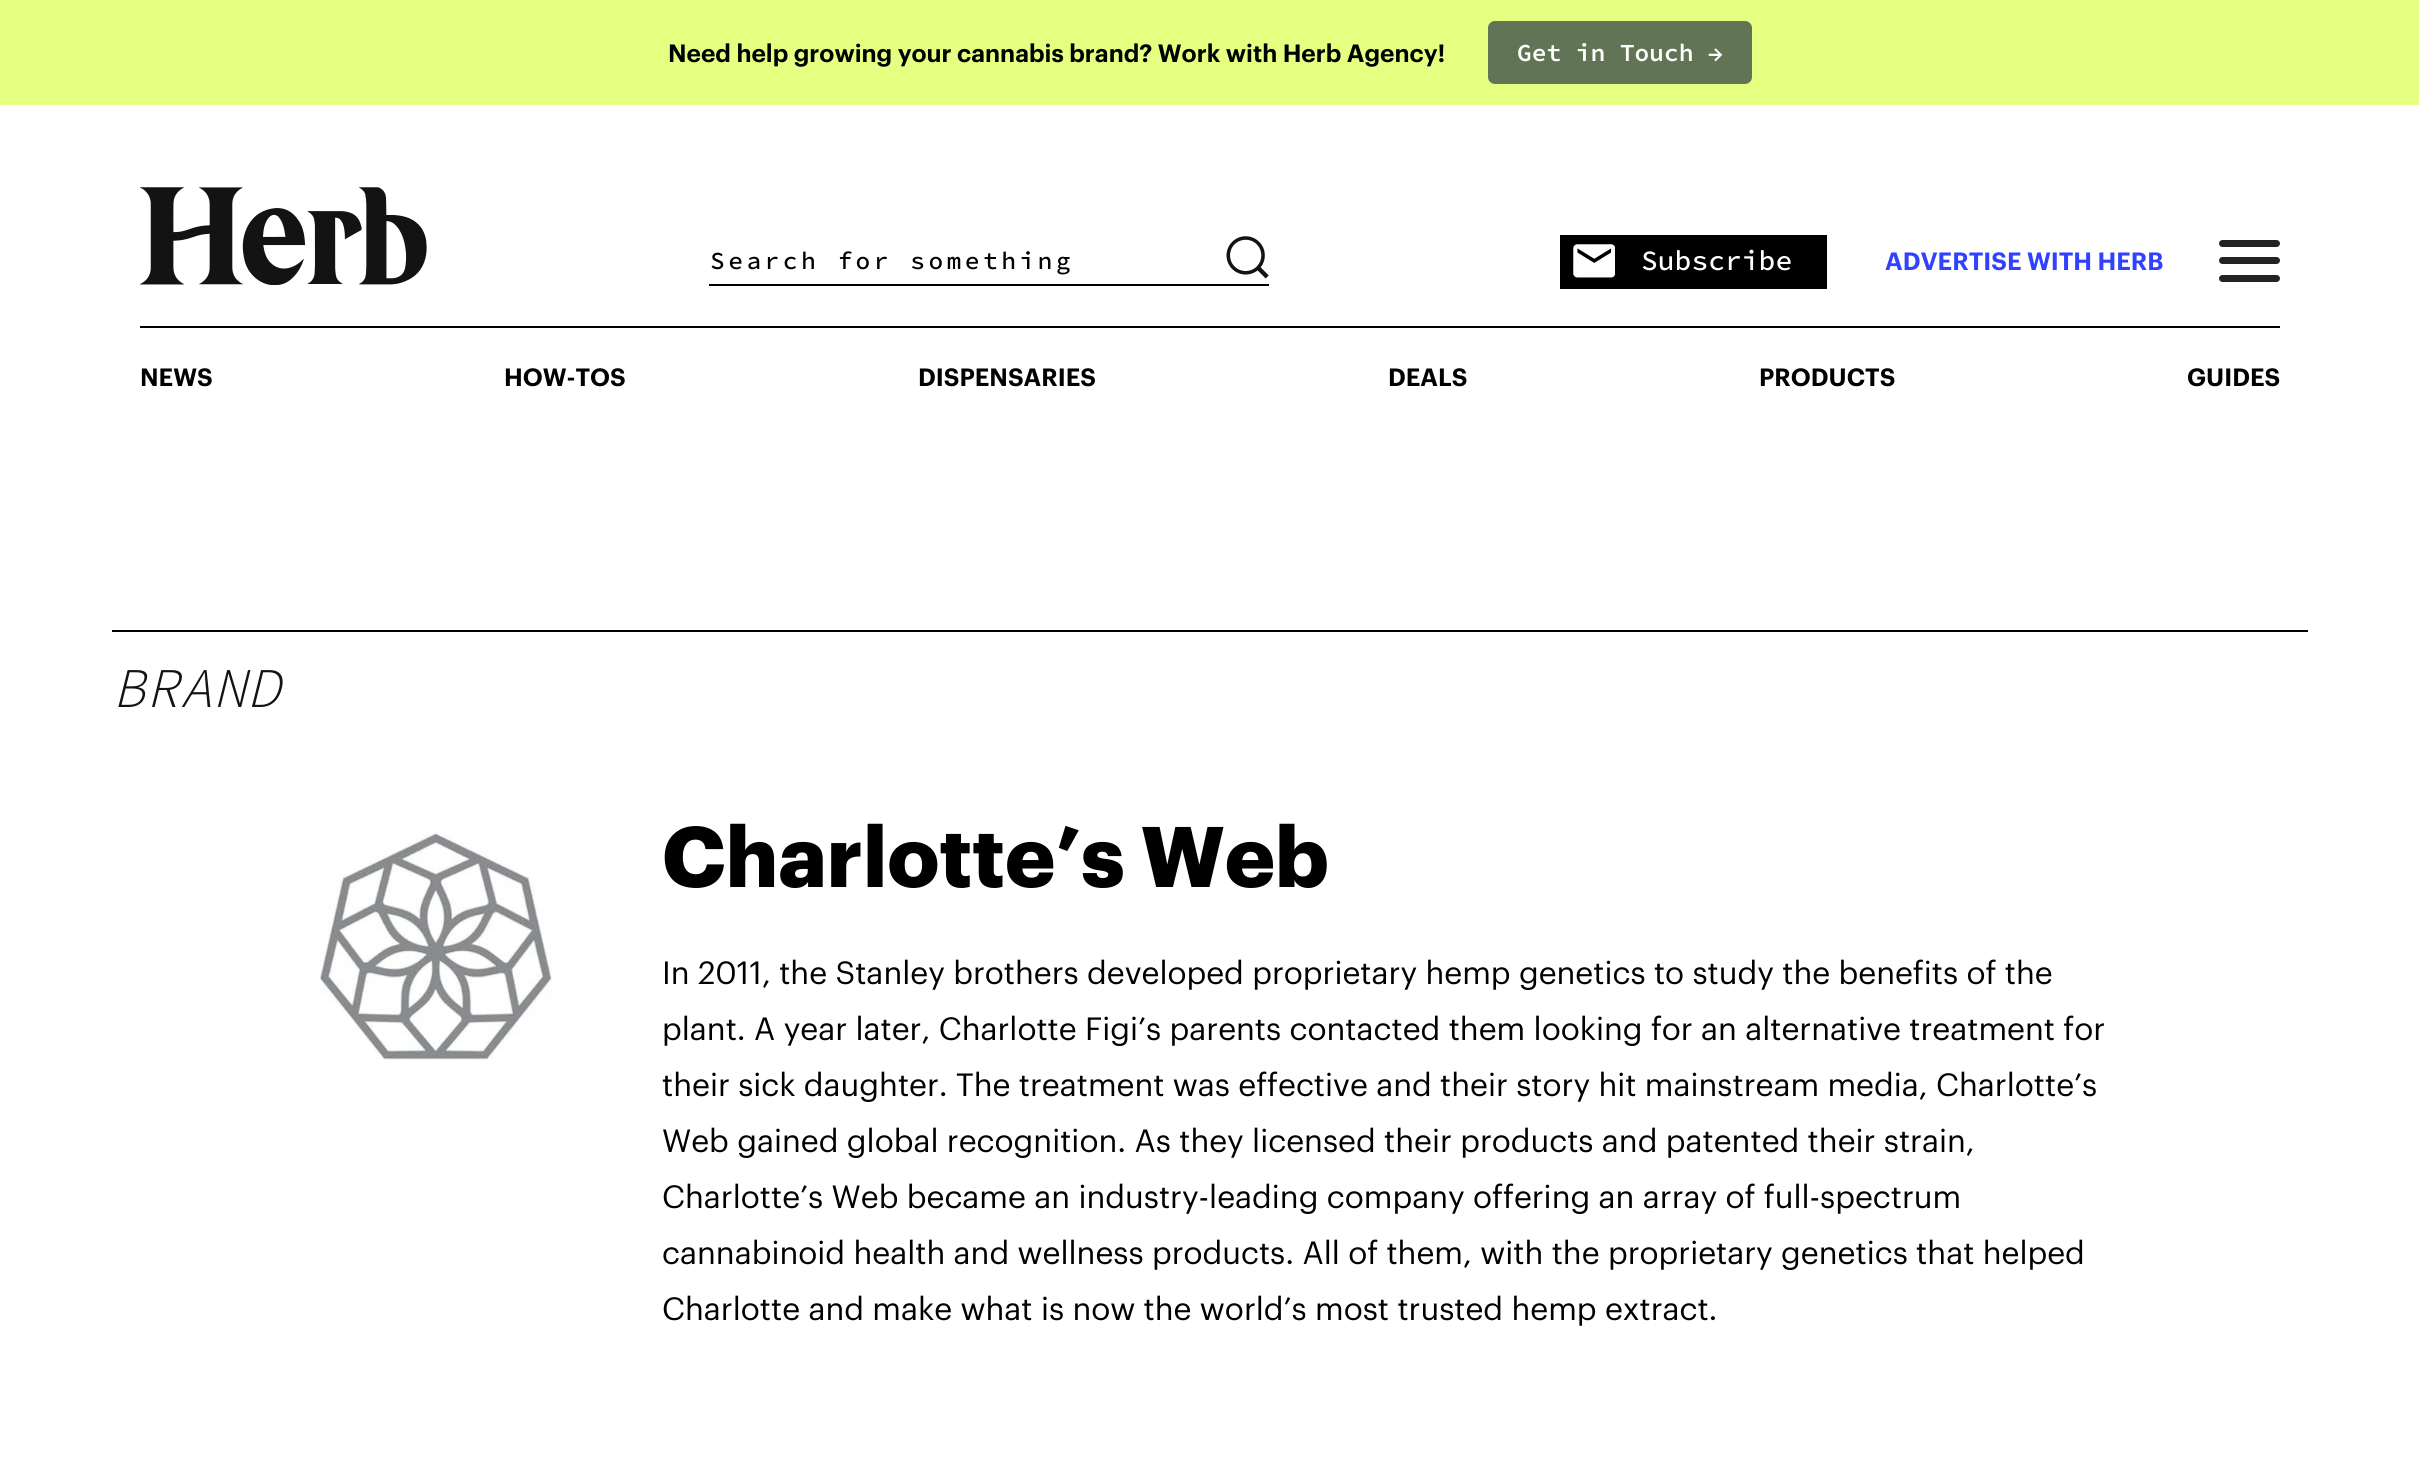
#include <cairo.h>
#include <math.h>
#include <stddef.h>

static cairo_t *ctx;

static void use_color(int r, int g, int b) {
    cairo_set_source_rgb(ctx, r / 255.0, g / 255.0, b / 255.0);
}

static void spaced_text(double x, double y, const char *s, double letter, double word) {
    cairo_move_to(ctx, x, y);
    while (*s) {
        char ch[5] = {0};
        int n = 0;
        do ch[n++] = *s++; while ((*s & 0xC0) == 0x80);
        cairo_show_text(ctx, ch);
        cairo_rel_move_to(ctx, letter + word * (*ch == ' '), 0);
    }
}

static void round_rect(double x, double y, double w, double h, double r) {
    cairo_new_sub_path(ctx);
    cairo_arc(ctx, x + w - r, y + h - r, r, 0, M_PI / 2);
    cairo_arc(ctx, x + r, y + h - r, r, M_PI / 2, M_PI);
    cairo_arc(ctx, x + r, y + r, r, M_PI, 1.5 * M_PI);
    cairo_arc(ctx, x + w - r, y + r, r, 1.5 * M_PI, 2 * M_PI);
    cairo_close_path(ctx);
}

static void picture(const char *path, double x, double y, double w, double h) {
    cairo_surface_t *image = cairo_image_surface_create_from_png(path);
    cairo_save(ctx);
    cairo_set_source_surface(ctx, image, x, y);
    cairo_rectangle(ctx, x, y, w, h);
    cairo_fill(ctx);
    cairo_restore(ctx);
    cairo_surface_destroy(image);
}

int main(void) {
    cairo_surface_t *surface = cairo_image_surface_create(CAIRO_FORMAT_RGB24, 2419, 1461);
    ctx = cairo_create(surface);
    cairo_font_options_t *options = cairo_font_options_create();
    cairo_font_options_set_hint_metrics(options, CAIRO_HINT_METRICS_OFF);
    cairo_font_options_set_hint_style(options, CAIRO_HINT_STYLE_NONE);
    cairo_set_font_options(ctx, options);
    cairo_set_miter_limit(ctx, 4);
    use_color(255, 255, 255);
    cairo_paint(ctx);
    use_color(229, 255, 128);
    cairo_rectangle(ctx, 0, 0, 2419, 105);
    cairo_fill(ctx);
    cairo_select_font_face(ctx, "Graphik SemiBold", CAIRO_FONT_SLANT_NORMAL, CAIRO_FONT_WEIGHT_NORMAL);
    cairo_set_font_size(ctx, 24.5);
    use_color(0, 0, 0);
    cairo_move_to(ctx, 668, 62);
    cairo_show_text(ctx, "Need help growing your cannabis brand? Work with Herb Agency!");
    use_color(97, 117, 86);
    round_rect(1489, 22, 262, 61, 6);
    cairo_fill_preserve(ctx);
    cairo_stroke(ctx);
    cairo_select_font_face(ctx, "Source Code Pro SemiBold", CAIRO_FONT_SLANT_NORMAL, CAIRO_FONT_WEIGHT_NORMAL);
    use_color(255, 255, 255);
    cairo_move_to(ctx, 1517, 61);
    cairo_show_text(ctx, "Get in Touch →");
    use_color(0, 0, 0);
    cairo_rectangle(ctx, 140, 326, 2140, 2);
    cairo_fill(ctx);
    picture("img1.png", 140, 187, 287, 98);
    cairo_rectangle(ctx, 709, 284, 560, 2);
    cairo_fill(ctx);
    cairo_select_font_face(ctx, "Source Code Pro Medium", CAIRO_FONT_SLANT_NORMAL, CAIRO_FONT_WEIGHT_NORMAL);
    spaced_text(710, 269, "Search for something", 3.5, 0);
    picture("img2.png", 1226, 236, 43, 43);
    cairo_rectangle(ctx, 1560, 235, 267, 54);
    cairo_fill(ctx);
    picture("img3.png", 1573, 244, 42, 34);
    cairo_set_font_size(ctx, 28);
    use_color(255, 255, 255);
    cairo_move_to(ctx, 1641, 270);
    cairo_show_text(ctx, "Subscribe");
    cairo_select_font_face(ctx, "Graphik SemiBold", CAIRO_FONT_SLANT_NORMAL, CAIRO_FONT_WEIGHT_NORMAL);
    cairo_set_font_size(ctx, 24.5);
    use_color(48, 65, 255);
    cairo_move_to(ctx, 1885, 270);
    cairo_show_text(ctx, "ADVERTISE WITH HERB");
    use_color(35, 35, 35);
    round_rect(2219, 240, 61, 7, 3.5);
    cairo_fill(ctx);
    round_rect(2219, 257, 61, 7, 3.5);
    cairo_fill(ctx);
    round_rect(2219, 275, 61, 7, 3.5);
    cairo_fill(ctx);
    use_color(0, 0, 0);
    cairo_move_to(ctx, 140, 386);
    cairo_show_text(ctx, "NEWS");
    cairo_move_to(ctx, 504, 386);
    cairo_show_text(ctx, "HOW-TOS");
    cairo_move_to(ctx, 918, 386);
    cairo_show_text(ctx, "DISPENSARIES");
    cairo_move_to(ctx, 1388, 386);
    cairo_show_text(ctx, "DEALS");
    cairo_move_to(ctx, 1759, 386);
    cairo_show_text(ctx, "PRODUCTS");
    cairo_move_to(ctx, 2187, 386);
    cairo_show_text(ctx, "GUIDES");
    cairo_rectangle(ctx, 112, 630, 2196, 2);
    cairo_fill(ctx);
    cairo_select_font_face(ctx, "Source Code Pro Light", CAIRO_FONT_SLANT_ITALIC, CAIRO_FONT_WEIGHT_NORMAL);
    cairo_set_font_size(ctx, 56);
    use_color(20, 19, 19);
    cairo_move_to(ctx, 112, 707);
    cairo_show_text(ctx, "BRAND");
    picture("img4.png", 319, 832, 233, 228);
    cairo_select_font_face(ctx, "Graphik", CAIRO_FONT_SLANT_NORMAL, CAIRO_FONT_WEIGHT_BOLD);
    cairo_set_font_size(ctx, 84);
    use_color(0, 0, 0);
    cairo_move_to(ctx, 662, 887);
    cairo_show_text(ctx, "Charlotte’s Web");
    cairo_select_font_face(ctx, "Graphik", CAIRO_FONT_SLANT_NORMAL, CAIRO_FONT_WEIGHT_NORMAL);
    cairo_set_font_size(ctx, 31.5);
    cairo_move_to(ctx, 662, 984);
    cairo_show_text(ctx, "In 2011, the Stanley brothers developed proprietary hemp genetics to study the benefits of the");
    cairo_move_to(ctx, 662, 1040);
    cairo_show_text(ctx, "plant. A year later, Charlotte Figi’s parents contacted them looking for an alternative treatment for");
    cairo_move_to(ctx, 662, 1096);
    cairo_show_text(ctx, "their sick daughter. The treatment was effective and their story hit mainstream media, Charlotte’s");
    cairo_move_to(ctx, 662, 1152);
    cairo_show_text(ctx, "Web gained global recognition. As they licensed their products and patented their strain,");
    cairo_move_to(ctx, 662, 1208);
    cairo_show_text(ctx, "Charlotte’s Web became an industry-leading company offering an array of full-spectrum");
    cairo_move_to(ctx, 662, 1264);
    cairo_show_text(ctx, "cannabinoid health and wellness products. All of them, with the proprietary genetics that helped");
    cairo_move_to(ctx, 662, 1320);
    cairo_show_text(ctx, "Charlotte and make what is now the world’s most trusted hemp extract.");
    cairo_surface_write_to_png(surface, "result.png");
    cairo_font_options_destroy(options);
    cairo_destroy(ctx);
    cairo_surface_destroy(surface);
    return 0;
}
